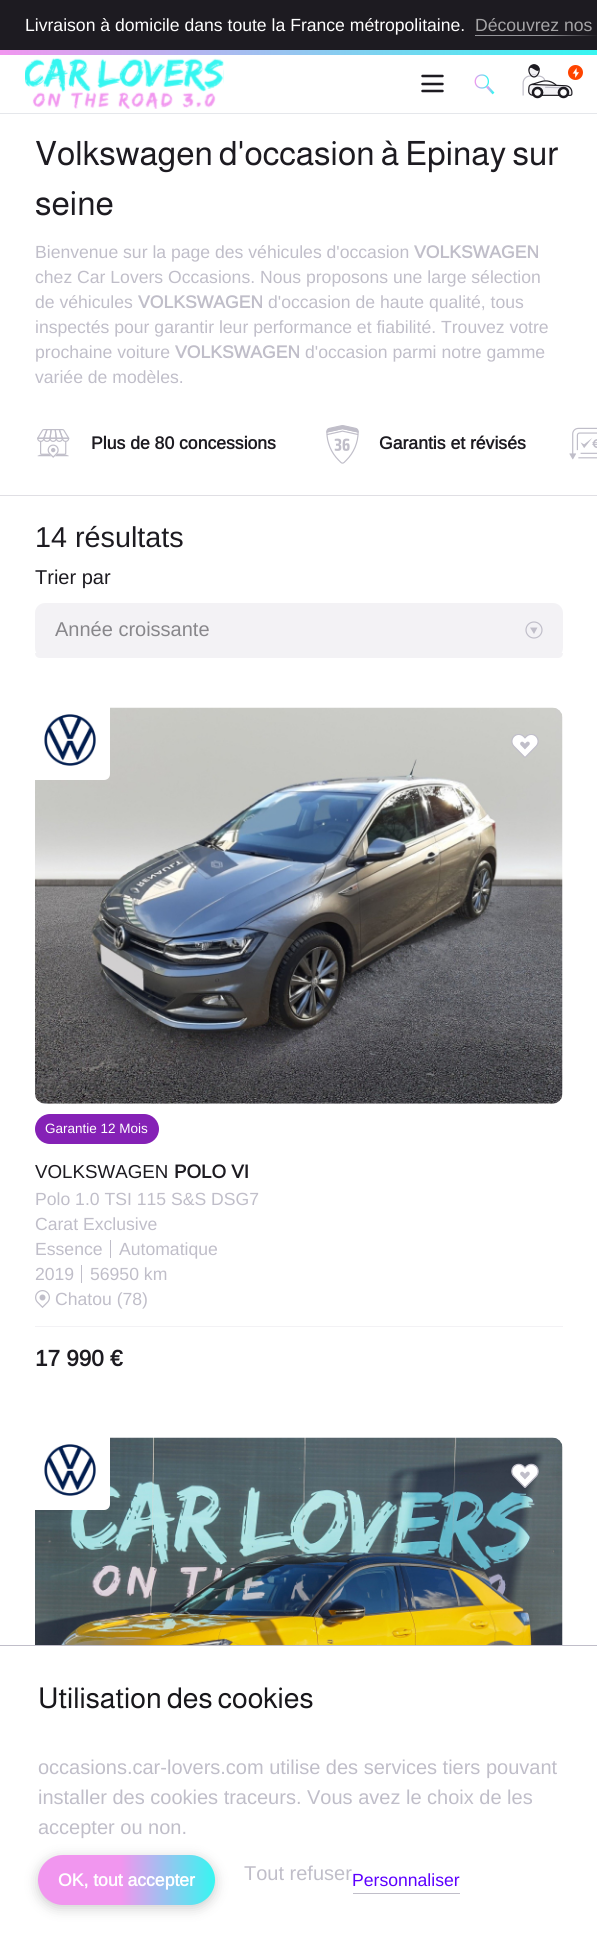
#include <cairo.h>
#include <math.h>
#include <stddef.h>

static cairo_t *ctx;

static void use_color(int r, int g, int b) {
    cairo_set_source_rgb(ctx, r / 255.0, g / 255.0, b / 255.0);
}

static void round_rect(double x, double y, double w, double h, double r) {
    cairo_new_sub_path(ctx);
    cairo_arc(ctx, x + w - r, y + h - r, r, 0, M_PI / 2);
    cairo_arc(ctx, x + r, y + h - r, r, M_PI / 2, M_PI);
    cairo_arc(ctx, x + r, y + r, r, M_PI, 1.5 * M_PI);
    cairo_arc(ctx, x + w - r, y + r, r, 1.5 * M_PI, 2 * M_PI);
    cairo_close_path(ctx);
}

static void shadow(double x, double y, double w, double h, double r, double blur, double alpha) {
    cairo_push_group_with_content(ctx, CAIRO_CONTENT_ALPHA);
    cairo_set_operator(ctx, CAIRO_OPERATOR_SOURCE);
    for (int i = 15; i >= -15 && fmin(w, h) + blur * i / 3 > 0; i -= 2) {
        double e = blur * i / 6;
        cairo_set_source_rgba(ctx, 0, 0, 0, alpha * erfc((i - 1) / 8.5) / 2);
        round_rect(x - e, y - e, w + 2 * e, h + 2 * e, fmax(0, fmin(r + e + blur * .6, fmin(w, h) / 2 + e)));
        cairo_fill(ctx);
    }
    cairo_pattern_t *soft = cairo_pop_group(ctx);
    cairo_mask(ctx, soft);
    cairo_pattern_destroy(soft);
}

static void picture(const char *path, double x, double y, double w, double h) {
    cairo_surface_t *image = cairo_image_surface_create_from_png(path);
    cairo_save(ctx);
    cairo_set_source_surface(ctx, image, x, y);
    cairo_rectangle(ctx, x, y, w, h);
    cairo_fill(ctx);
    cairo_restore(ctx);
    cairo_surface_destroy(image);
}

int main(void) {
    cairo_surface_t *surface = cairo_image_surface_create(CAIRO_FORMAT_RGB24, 597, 1935);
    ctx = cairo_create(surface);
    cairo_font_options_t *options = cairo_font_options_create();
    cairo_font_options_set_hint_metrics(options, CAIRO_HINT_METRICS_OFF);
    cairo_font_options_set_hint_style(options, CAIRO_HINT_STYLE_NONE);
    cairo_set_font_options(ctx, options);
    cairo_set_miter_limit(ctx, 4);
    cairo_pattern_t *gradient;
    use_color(255, 255, 255);
    cairo_paint(ctx);
    use_color(29, 27, 33);
    cairo_rectangle(ctx, 0, 0, 597, 50);
    cairo_fill(ctx);
    cairo_select_font_face(ctx, "Arimo", CAIRO_FONT_SLANT_NORMAL, CAIRO_FONT_WEIGHT_NORMAL);
    cairo_set_font_size(ctx, 17.6);
    use_color(255, 255, 255);
    cairo_move_to(ctx, 25, 31);
    cairo_show_text(ctx, "Livraison à domicile dans toute la France métropolitaine.");
    use_color(165, 164, 166);
    cairo_move_to(ctx, 475, 31);
    cairo_show_text(ctx, "Découvrez nos");
    use_color(149, 149, 154);
    cairo_rectangle(ctx, 475, 35, 122, 1);
    cairo_fill(ctx);
    gradient = cairo_pattern_create_linear(548, 25, 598, 25);
    cairo_pattern_add_color_stop_rgba(gradient, 0, 0.114, 0.106, 0.129, 0);
    cairo_pattern_add_color_stop_rgba(gradient, 1, 0.114, 0.106, 0.129, 1);
    cairo_set_source(ctx, gradient);
    cairo_pattern_destroy(gradient);
    cairo_rectangle(ctx, 549, 35, 48, 1);
    cairo_fill(ctx);
    gradient = cairo_pattern_create_linear(0, 53, 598, 52);
    cairo_pattern_add_color_stop_rgba(gradient, 0, 0.945, 0.588, 0.937, 1);
    cairo_pattern_add_color_stop_rgba(gradient, 1, 0.212, 0.965, 0.945, 1);
    cairo_set_source(ctx, gradient);
    cairo_pattern_destroy(gradient);
    cairo_rectangle(ctx, 0, 50, 597, 5);
    cairo_fill(ctx);
    use_color(229, 231, 235);
    cairo_rectangle(ctx, 0, 113, 597, 1);
    cairo_fill(ctx);
    picture("img1.png", 25, 58, 199, 51);
    cairo_new_path(ctx);
    cairo_move_to(ctx, 422.5, 76);
    cairo_line_to(ctx, 442.5, 76);
    cairo_move_to(ctx, 422.5, 84);
    cairo_line_to(ctx, 442.5, 84);
    cairo_move_to(ctx, 422.5, 91);
    cairo_line_to(ctx, 442.5, 91);
    use_color(29, 27, 33);
    cairo_set_line_width(ctx, 2.5);
    cairo_set_line_cap(ctx, CAIRO_LINE_CAP_ROUND);
    cairo_set_line_join(ctx, CAIRO_LINE_JOIN_ROUND);
    cairo_stroke(ctx);
    cairo_new_path(ctx);
    cairo_move_to(ctx, 482, 88);
    cairo_curve_to(ctx, 490.5, 88, 490.5, 75, 482, 75);
    cairo_curve_to(ctx, 473, 75, 473, 88, 482, 88);
    cairo_close_path(ctx);
    gradient = cairo_pattern_create_linear(475, 82, 488, 82);
    cairo_pattern_add_color_stop_rgba(gradient, 0, 0.945, 0.588, 0.937, 1);
    cairo_pattern_add_color_stop_rgba(gradient, 1, 0.212, 0.965, 0.945, 1);
    cairo_set_source(ctx, gradient);
    cairo_pattern_destroy(gradient);
    cairo_set_line_width(ctx, 1.3);
    cairo_set_line_cap(ctx, CAIRO_LINE_CAP_BUTT);
    cairo_set_line_join(ctx, CAIRO_LINE_JOIN_MITER);
    cairo_stroke(ctx);
    cairo_new_path(ctx);
    cairo_move_to(ctx, 493.5, 93.5);
    cairo_line_to(ctx, 487, 86.5);
    gradient = cairo_pattern_create_linear(487, 90, 493, 90);
    cairo_pattern_add_color_stop_rgba(gradient, 0, 0.945, 0.588, 0.937, 1);
    cairo_pattern_add_color_stop_rgba(gradient, 1, 0.212, 0.965, 0.945, 1);
    cairo_set_source(ctx, gradient);
    cairo_pattern_destroy(gradient);
    cairo_set_line_width(ctx, 2.6);
    cairo_stroke(ctx);
    picture("img2.png", 522, 64, 61, 35);
    use_color(224, 223, 228);
    cairo_rectangle(ctx, 0, 495, 597, 1);
    cairo_fill(ctx);
    cairo_select_font_face(ctx, "Almarai", CAIRO_FONT_SLANT_NORMAL, CAIRO_FONT_WEIGHT_NORMAL);
    cairo_set_font_size(ctx, 33.6);
    use_color(29, 27, 33);
    cairo_move_to(ctx, 35, 165);
    cairo_show_text(ctx, "Volkswagen d'occasion à Epinay sur");
    cairo_move_to(ctx, 35, 215);
    cairo_show_text(ctx, "seine");
    cairo_select_font_face(ctx, "Arimo", CAIRO_FONT_SLANT_NORMAL, CAIRO_FONT_WEIGHT_NORMAL);
    cairo_set_font_size(ctx, 17.6);
    use_color(192, 190, 201);
    cairo_move_to(ctx, 35, 258);
    cairo_show_text(ctx, "Bienvenue sur la page des véhicules d'occasion");
    cairo_select_font_face(ctx, "Arimo", CAIRO_FONT_SLANT_NORMAL, CAIRO_FONT_WEIGHT_BOLD);
    cairo_move_to(ctx, 414, 258);
    cairo_show_text(ctx, "VOLKSWAGEN");
    cairo_select_font_face(ctx, "Arimo", CAIRO_FONT_SLANT_NORMAL, CAIRO_FONT_WEIGHT_NORMAL);
    cairo_move_to(ctx, 35, 283);
    cairo_show_text(ctx, "chez Car Lovers Occasions. Nous proposons une large sélection");
    cairo_move_to(ctx, 35, 308);
    cairo_show_text(ctx, "de véhicules");
    cairo_select_font_face(ctx, "Arimo", CAIRO_FONT_SLANT_NORMAL, CAIRO_FONT_WEIGHT_BOLD);
    cairo_move_to(ctx, 138, 308);
    cairo_show_text(ctx, "VOLKSWAGEN");
    cairo_select_font_face(ctx, "Arimo", CAIRO_FONT_SLANT_NORMAL, CAIRO_FONT_WEIGHT_NORMAL);
    cairo_move_to(ctx, 268, 308);
    cairo_show_text(ctx, "d'occasion de haute qualité, tous");
    cairo_move_to(ctx, 35, 333);
    cairo_show_text(ctx, "inspectés pour garantir leur performance et fiabilité. Trouvez votre");
    cairo_move_to(ctx, 35, 358);
    cairo_show_text(ctx, "prochaine voiture");
    cairo_select_font_face(ctx, "Arimo", CAIRO_FONT_SLANT_NORMAL, CAIRO_FONT_WEIGHT_BOLD);
    cairo_move_to(ctx, 175, 358);
    cairo_show_text(ctx, "VOLKSWAGEN");
    cairo_select_font_face(ctx, "Arimo", CAIRO_FONT_SLANT_NORMAL, CAIRO_FONT_WEIGHT_NORMAL);
    cairo_move_to(ctx, 305, 358);
    cairo_show_text(ctx, "d'occasion parmi notre gamme");
    cairo_move_to(ctx, 35, 383);
    cairo_show_text(ctx, "variée de modèles.");
    picture("img3.png", 37, 429, 33, 29);
    cairo_select_font_face(ctx, "Arimo", CAIRO_FONT_SLANT_NORMAL, CAIRO_FONT_WEIGHT_BOLD);
    use_color(29, 27, 33);
    cairo_move_to(ctx, 91, 449);
    cairo_show_text(ctx, "Plus de 80 concessions");
    picture("img4.png", 326, 425, 33, 39);
    cairo_move_to(ctx, 379, 449);
    cairo_show_text(ctx, "Garantis et révisés");
    picture("img5.png", 569, 427, 28, 33);
    cairo_select_font_face(ctx, "Liberation Sans", CAIRO_FONT_SLANT_NORMAL, CAIRO_FONT_WEIGHT_NORMAL);
    cairo_set_font_size(ctx, 28.75);
    cairo_move_to(ctx, 35, 547);
    cairo_show_text(ctx, "14 résultats");
    cairo_select_font_face(ctx, "Arimo", CAIRO_FONT_SLANT_NORMAL, CAIRO_FONT_WEIGHT_NORMAL);
    cairo_set_font_size(ctx, 20);
    cairo_move_to(ctx, 35, 584);
    cairo_show_text(ctx, "Trier par");
    use_color(243, 242, 245);
    round_rect(35, 603, 528, 55, 10);
    cairo_fill(ctx);
    use_color(136, 135, 139);
    cairo_move_to(ctx, 55, 636);
    cairo_show_text(ctx, "Année croissante");
    use_color(192, 190, 201);
    cairo_new_path(ctx);
    cairo_move_to(ctx, 534, 634);
    cairo_line_to(ctx, 530, 627.5);
    cairo_line_to(ctx, 537.5, 627.5);
    cairo_close_path(ctx);
    cairo_fill(ctx);
    cairo_arc(ctx, 534, 630, 8, 0, 2 * M_PI);
    cairo_set_line_width(ctx, 1.2);
    cairo_stroke(ctx);
    use_color(243, 242, 245);
    cairo_new_path(ctx);
    cairo_move_to(ctx, 35, 653);
    cairo_line_to(ctx, 563, 653);
    cairo_curve_to(ctx, 563, 656, 561, 658, 558, 658);
    cairo_line_to(ctx, 40, 658);
    cairo_curve_to(ctx, 37, 658, 35, 656, 35, 653);
    cairo_close_path(ctx);
    cairo_fill(ctx);
    picture("img8.png", 35, 707, 528, 397);
    picture("img6.png", 511, 734, 28, 24);
    use_color(255, 255, 255);
    cairo_new_path(ctx);
    cairo_move_to(ctx, 30, 700);
    cairo_line_to(ctx, 110, 700);
    cairo_line_to(ctx, 110, 774);
    cairo_curve_to(ctx, 110, 777.5, 107.5, 780, 104, 780);
    cairo_line_to(ctx, 30, 780);
    cairo_close_path(ctx);
    cairo_fill(ctx);
    picture("img7.png", 44, 714, 52, 52);
    use_color(133, 33, 182);
    round_rect(35, 1114, 124, 30, 15);
    cairo_fill(ctx);
    cairo_set_font_size(ctx, 13.5);
    use_color(255, 255, 255);
    cairo_move_to(ctx, 45, 1133);
    cairo_show_text(ctx, "Garantie 12 Mois");
    cairo_set_font_size(ctx, 18.75);
    use_color(29, 27, 33);
    cairo_move_to(ctx, 35, 1178);
    cairo_show_text(ctx, "VOLKSWAGEN");
    cairo_select_font_face(ctx, "Arimo", CAIRO_FONT_SLANT_NORMAL, CAIRO_FONT_WEIGHT_BOLD);
    cairo_move_to(ctx, 174, 1178);
    cairo_show_text(ctx, "POLO VI");
    use_color(243, 242, 245);
    cairo_rectangle(ctx, 35, 1326, 528, 1);
    cairo_fill(ctx);
    cairo_select_font_face(ctx, "Arimo", CAIRO_FONT_SLANT_NORMAL, CAIRO_FONT_WEIGHT_NORMAL);
    cairo_set_font_size(ctx, 17.6);
    use_color(192, 190, 201);
    cairo_move_to(ctx, 35, 1205);
    cairo_show_text(ctx, "Polo 1.0 TSI 115 S&S DSG7");
    cairo_move_to(ctx, 35, 1230);
    cairo_show_text(ctx, "Carat Exclusive");
    cairo_move_to(ctx, 35, 1255);
    cairo_show_text(ctx, "Essence");
    cairo_rectangle(ctx, 110, 1240, 1, 18);
    cairo_fill(ctx);
    cairo_move_to(ctx, 119, 1255);
    cairo_show_text(ctx, "Automatique");
    cairo_move_to(ctx, 35, 1280);
    cairo_show_text(ctx, "2019");
    cairo_rectangle(ctx, 81, 1265, 1, 18);
    cairo_fill(ctx);
    cairo_move_to(ctx, 90, 1280);
    cairo_show_text(ctx, "56950 km");
    picture("img9.png", 35, 1290, 15, 18);
    cairo_move_to(ctx, 55, 1305);
    cairo_show_text(ctx, "Chatou (78)");
    cairo_select_font_face(ctx, "Arimo", CAIRO_FONT_SLANT_NORMAL, CAIRO_FONT_WEIGHT_BOLD);
    cairo_set_font_size(ctx, 22.5);
    use_color(29, 27, 33);
    cairo_move_to(ctx, 35, 1366);
    cairo_show_text(ctx, "17 990 €");
    picture("img10.png", 35, 1437, 528, 208);
    use_color(255, 255, 255);
    cairo_new_path(ctx);
    cairo_move_to(ctx, 30, 1430);
    cairo_line_to(ctx, 110, 1430);
    cairo_line_to(ctx, 110, 1504);
    cairo_curve_to(ctx, 110, 1507.5, 107.5, 1510, 104, 1510);
    cairo_line_to(ctx, 30, 1510);
    cairo_close_path(ctx);
    cairo_fill(ctx);
    picture("img7.png", 44, 1444, 52, 52);
    picture("img11.png", 511, 1463, 28, 25);
    use_color(192, 190, 201);
    cairo_rectangle(ctx, 0, 1645, 597, 1);
    cairo_fill(ctx);
    cairo_select_font_face(ctx, "Almarai", CAIRO_FONT_SLANT_NORMAL, CAIRO_FONT_WEIGHT_NORMAL);
    cairo_set_font_size(ctx, 28.75);
    use_color(24, 23, 27);
    cairo_move_to(ctx, 38, 1708);
    cairo_show_text(ctx, "Utilisation des cookies");
    cairo_select_font_face(ctx, "Arimo", CAIRO_FONT_SLANT_NORMAL, CAIRO_FONT_WEIGHT_NORMAL);
    cairo_set_font_size(ctx, 20);
    use_color(192, 190, 201);
    cairo_move_to(ctx, 38, 1774);
    cairo_show_text(ctx, "occasions.car-lovers.com utilise des services tiers pouvant");
    cairo_move_to(ctx, 38, 1804);
    cairo_show_text(ctx, "installer des cookies traceurs. Vous avez le choix de les");
    cairo_move_to(ctx, 38, 1834);
    cairo_show_text(ctx, "accepter ou non.");
    use_color(0, 0, 0);
    shadow(38, 1858, 177, 50, 25, 6.5, 0.2);
    gradient = cairo_pattern_create_linear(38, 1880, 215, 1880);
    cairo_pattern_add_color_stop_rgba(gradient, 0.47, 0.945, 0.588, 0.937, 1);
    cairo_pattern_add_color_stop_rgba(gradient, 1, 0.212, 0.965, 0.945, 1);
    cairo_set_source(ctx, gradient);
    cairo_pattern_destroy(gradient);
    round_rect(38, 1855, 177, 50, 25);
    cairo_fill(ctx);
    cairo_select_font_face(ctx, "Arimo", CAIRO_FONT_SLANT_NORMAL, CAIRO_FONT_WEIGHT_BOLD);
    cairo_set_font_size(ctx, 17.6);
    use_color(255, 255, 255);
    cairo_move_to(ctx, 58, 1886);
    cairo_show_text(ctx, "OK, tout accepter");
    cairo_select_font_face(ctx, "Arimo", CAIRO_FONT_SLANT_NORMAL, CAIRO_FONT_WEIGHT_NORMAL);
    cairo_set_font_size(ctx, 20);
    use_color(192, 190, 201);
    cairo_move_to(ctx, 244, 1880);
    cairo_show_text(ctx, "Tout refuser");
    cairo_rectangle(ctx, 353, 1893, 107, 1);
    cairo_fill(ctx);
    cairo_set_font_size(ctx, 17.6);
    use_color(93, 0, 255);
    cairo_move_to(ctx, 352, 1886);
    cairo_show_text(ctx, "Personnaliser");
    cairo_surface_write_to_png(surface, "result.png");
    cairo_font_options_destroy(options);
    cairo_destroy(ctx);
    cairo_surface_destroy(surface);
    return 0;
}
